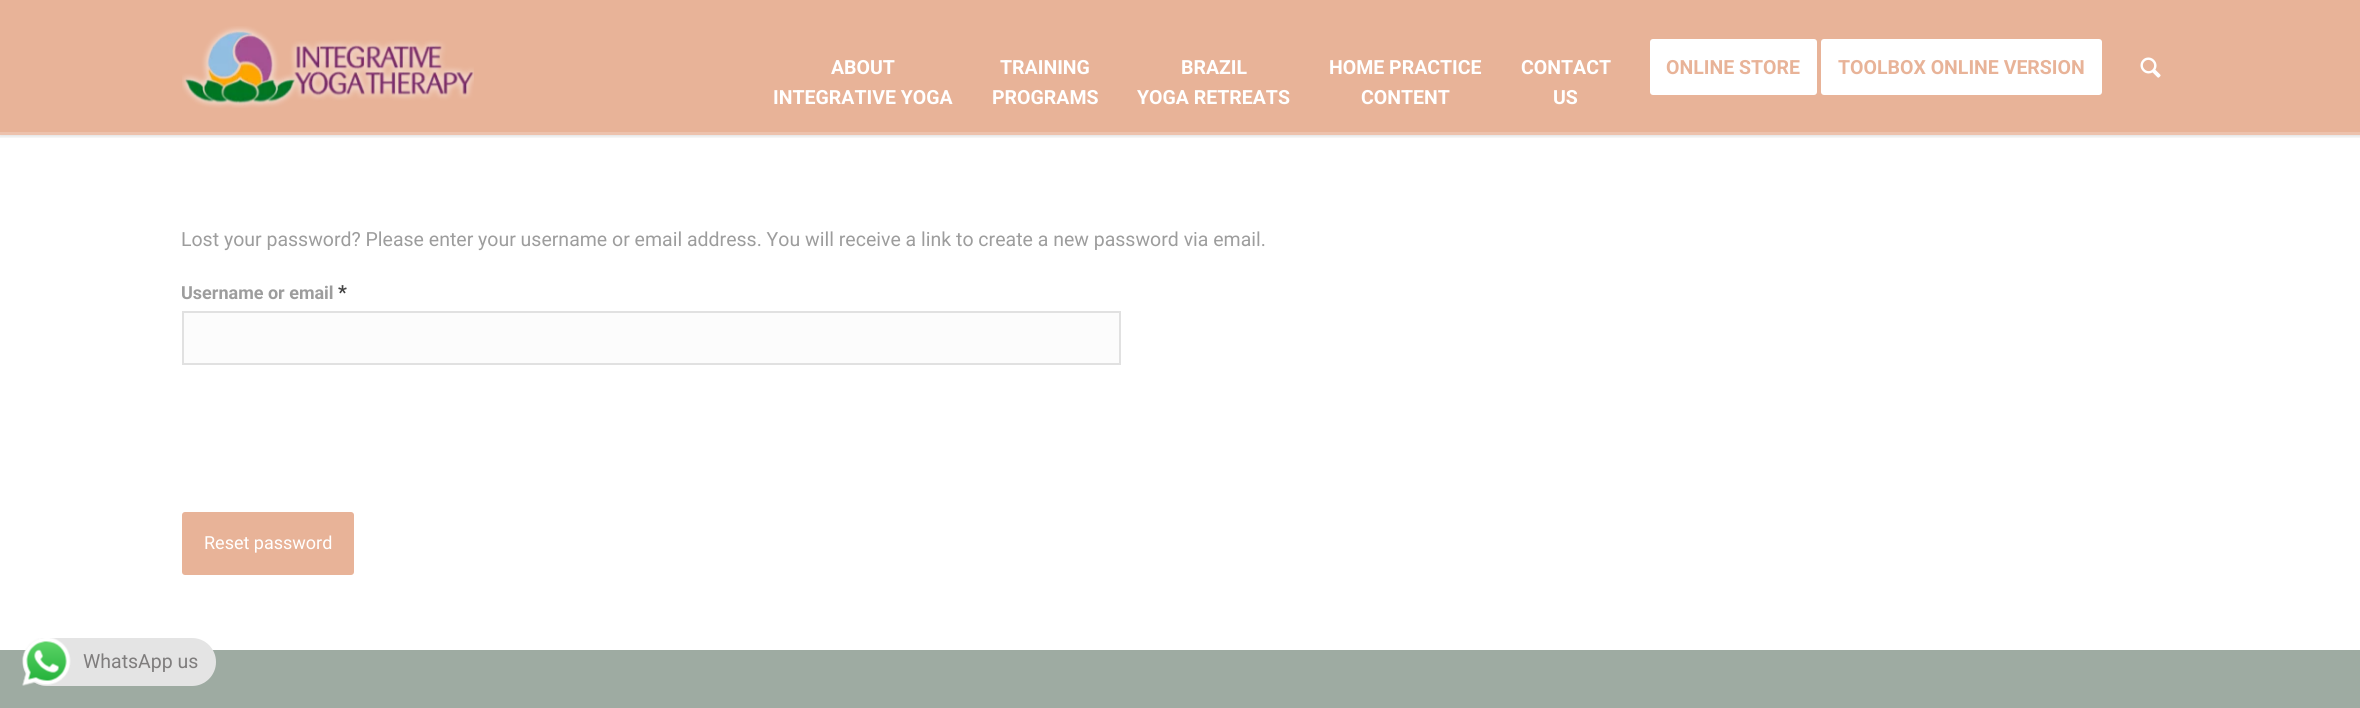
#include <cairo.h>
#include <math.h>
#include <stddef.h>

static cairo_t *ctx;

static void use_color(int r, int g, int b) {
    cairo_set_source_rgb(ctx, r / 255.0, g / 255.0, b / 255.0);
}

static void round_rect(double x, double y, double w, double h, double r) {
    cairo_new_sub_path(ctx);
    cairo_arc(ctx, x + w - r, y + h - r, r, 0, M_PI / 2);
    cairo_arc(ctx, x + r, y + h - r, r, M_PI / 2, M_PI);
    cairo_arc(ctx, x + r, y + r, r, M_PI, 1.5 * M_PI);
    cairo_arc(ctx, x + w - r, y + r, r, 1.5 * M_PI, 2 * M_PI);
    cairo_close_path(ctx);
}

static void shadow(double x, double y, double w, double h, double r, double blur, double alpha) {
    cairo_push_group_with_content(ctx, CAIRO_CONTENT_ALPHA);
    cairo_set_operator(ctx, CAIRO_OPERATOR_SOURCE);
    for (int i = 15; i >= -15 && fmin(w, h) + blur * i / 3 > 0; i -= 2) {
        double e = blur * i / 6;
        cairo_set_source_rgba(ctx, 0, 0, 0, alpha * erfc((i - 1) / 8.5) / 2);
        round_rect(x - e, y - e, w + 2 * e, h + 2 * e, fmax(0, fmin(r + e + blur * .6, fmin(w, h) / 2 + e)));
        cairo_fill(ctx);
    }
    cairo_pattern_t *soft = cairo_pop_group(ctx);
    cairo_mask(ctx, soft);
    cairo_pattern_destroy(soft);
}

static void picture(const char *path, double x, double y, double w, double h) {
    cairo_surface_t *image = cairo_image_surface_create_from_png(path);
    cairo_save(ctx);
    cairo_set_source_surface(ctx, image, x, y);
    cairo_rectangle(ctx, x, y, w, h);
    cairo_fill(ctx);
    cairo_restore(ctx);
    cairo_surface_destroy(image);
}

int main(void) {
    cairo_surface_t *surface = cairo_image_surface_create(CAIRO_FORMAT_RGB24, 2360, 708);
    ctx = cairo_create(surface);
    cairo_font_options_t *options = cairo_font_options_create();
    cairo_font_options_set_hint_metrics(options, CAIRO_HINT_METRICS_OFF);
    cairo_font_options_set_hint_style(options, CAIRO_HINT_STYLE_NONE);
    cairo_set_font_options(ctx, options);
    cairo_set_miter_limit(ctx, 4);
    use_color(232, 179, 152);
    cairo_paint(ctx);
    use_color(255, 255, 255);
    cairo_rectangle(ctx, 0, 135, 2360, 515);
    cairo_fill(ctx);
    use_color(237, 194, 173);
    cairo_rectangle(ctx, 0, 132, 2360, 3);
    cairo_fill(ctx);
    cairo_save(ctx);
    cairo_rectangle(ctx, 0, 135, 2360, 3);
    cairo_clip(ctx);
    use_color(0, 0, 0);
    shadow(-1, -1, 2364, 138, 0, 1.5, 0.1);
    cairo_restore(ctx);
    picture("img1.png", 182, 26, 292, 82);
    cairo_select_font_face(ctx, "Roboto", CAIRO_FONT_SLANT_NORMAL, CAIRO_FONT_WEIGHT_BOLD);
    cairo_set_font_size(ctx, 19.5);
    use_color(255, 255, 255);
    cairo_move_to(ctx, 831, 74);
    cairo_show_text(ctx, "ABOUT");
    cairo_move_to(ctx, 773, 104);
    cairo_show_text(ctx, "INTEGRATIVE YOGA");
    cairo_move_to(ctx, 1000, 74);
    cairo_show_text(ctx, "TRAINING");
    cairo_move_to(ctx, 992, 104);
    cairo_show_text(ctx, "PROGRAMS");
    cairo_move_to(ctx, 1181, 74);
    cairo_show_text(ctx, "BRAZIL");
    cairo_move_to(ctx, 1137, 104);
    cairo_show_text(ctx, "YOGA RETREATS");
    cairo_move_to(ctx, 1329, 74);
    cairo_show_text(ctx, "HOME PRACTICE");
    cairo_move_to(ctx, 1361, 104);
    cairo_show_text(ctx, "CONTENT");
    cairo_move_to(ctx, 1521, 74);
    cairo_show_text(ctx, "CONTACT");
    cairo_move_to(ctx, 1553, 104);
    cairo_show_text(ctx, "US");
    round_rect(1651.5, 40.5, 164, 53, 1.5);
    cairo_fill_preserve(ctx);
    cairo_set_line_width(ctx, 3);
    cairo_stroke(ctx);
    use_color(232, 179, 152);
    cairo_move_to(ctx, 1666, 74);
    cairo_show_text(ctx, "ONLINE STORE");
    use_color(255, 255, 255);
    round_rect(1822.5, 40.5, 278, 53, 1.5);
    cairo_fill_preserve(ctx);
    cairo_stroke(ctx);
    use_color(232, 179, 152);
    cairo_move_to(ctx, 1838, 74);
    cairo_show_text(ctx, "TOOLBOX ONLINE VERSION");
    picture("img2.png", 2140, 57, 21, 21);
    cairo_select_font_face(ctx, "Roboto", CAIRO_FONT_SLANT_NORMAL, CAIRO_FONT_WEIGHT_NORMAL);
    use_color(157, 157, 157);
    cairo_move_to(ctx, 181, 246);
    cairo_show_text(ctx, "Lost your password? Please enter your username or email address. You will receive a link to create a new password via email.");
    cairo_select_font_face(ctx, "Roboto", CAIRO_FONT_SLANT_NORMAL, CAIRO_FONT_WEIGHT_BOLD);
    cairo_set_font_size(ctx, 18);
    cairo_move_to(ctx, 181, 299);
    cairo_show_text(ctx, "Username or email");
    cairo_set_font_size(ctx, 19.5);
    use_color(68, 68, 68);
    cairo_move_to(ctx, 338, 299);
    cairo_show_text(ctx, "*");
    use_color(252, 252, 252);
    cairo_rectangle(ctx, 183, 312, 937, 52);
    cairo_fill_preserve(ctx);
    use_color(225, 225, 225);
    cairo_set_line_width(ctx, 2);
    cairo_stroke(ctx);
    use_color(232, 179, 152);
    round_rect(182, 512, 172, 63, 3);
    cairo_fill(ctx);
    cairo_select_font_face(ctx, "Roboto", CAIRO_FONT_SLANT_NORMAL, CAIRO_FONT_WEIGHT_NORMAL);
    cairo_set_font_size(ctx, 18);
    use_color(255, 255, 255);
    cairo_move_to(ctx, 204, 549);
    cairo_show_text(ctx, "Reset password");
    use_color(158, 171, 162);
    cairo_rectangle(ctx, 0, 650, 2360, 58);
    cairo_fill(ctx);
    use_color(228, 228, 228);
    round_rect(23, 638, 193, 48, 24);
    cairo_fill(ctx);
    picture("img3.png", 22, 638, 49, 48);
    cairo_set_font_size(ctx, 19.5);
    use_color(127, 125, 125);
    cairo_move_to(ctx, 83, 668);
    cairo_show_text(ctx, "WhatsApp us");
    cairo_surface_write_to_png(surface, "result.png");
    cairo_font_options_destroy(options);
    cairo_destroy(ctx);
    cairo_surface_destroy(surface);
    return 0;
}
